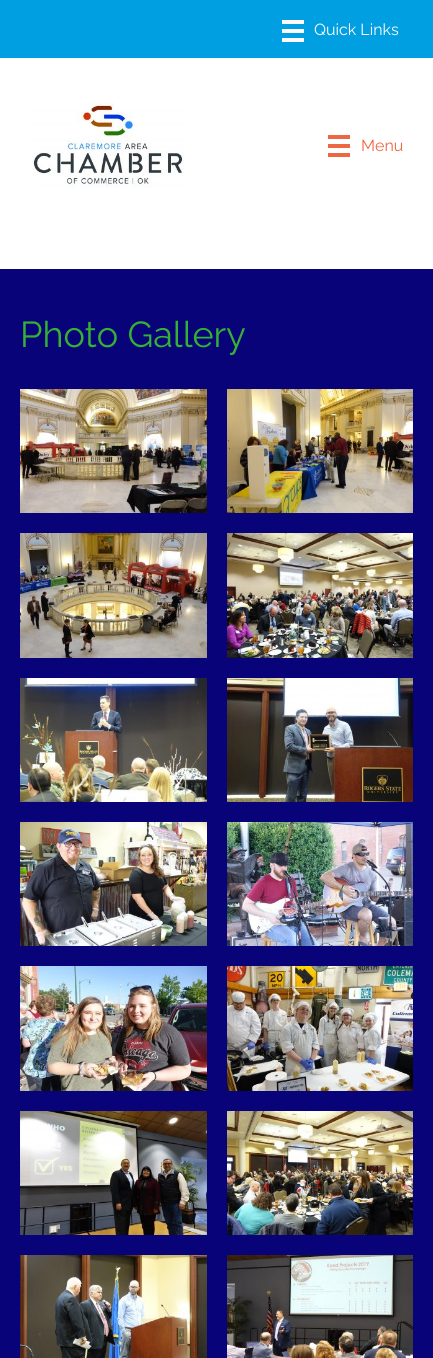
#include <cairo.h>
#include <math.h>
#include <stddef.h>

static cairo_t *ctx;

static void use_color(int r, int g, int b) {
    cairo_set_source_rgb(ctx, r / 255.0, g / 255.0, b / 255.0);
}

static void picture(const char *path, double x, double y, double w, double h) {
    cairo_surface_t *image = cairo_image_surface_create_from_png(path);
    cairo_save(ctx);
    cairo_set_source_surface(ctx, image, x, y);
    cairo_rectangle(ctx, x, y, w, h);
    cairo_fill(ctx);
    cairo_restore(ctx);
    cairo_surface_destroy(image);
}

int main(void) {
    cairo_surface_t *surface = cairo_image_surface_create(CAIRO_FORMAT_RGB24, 433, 1358);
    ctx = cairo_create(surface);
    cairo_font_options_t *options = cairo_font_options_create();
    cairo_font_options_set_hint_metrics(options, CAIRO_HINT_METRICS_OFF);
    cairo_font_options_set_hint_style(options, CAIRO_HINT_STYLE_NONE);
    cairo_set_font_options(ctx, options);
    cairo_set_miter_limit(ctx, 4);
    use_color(9, 3, 122);
    cairo_paint(ctx);
    use_color(0, 159, 225);
    cairo_rectangle(ctx, 0, 0, 433, 58);
    cairo_fill(ctx);
    use_color(255, 249, 249);
    cairo_rectangle(ctx, 282, 20, 22, 4);
    cairo_fill(ctx);
    cairo_rectangle(ctx, 282, 29, 22, 4);
    cairo_fill(ctx);
    cairo_rectangle(ctx, 282, 38, 22, 4);
    cairo_fill(ctx);
    cairo_select_font_face(ctx, "Raleway", CAIRO_FONT_SLANT_NORMAL, CAIRO_FONT_WEIGHT_NORMAL);
    cairo_set_font_size(ctx, 16);
    cairo_move_to(ctx, 314, 35);
    cairo_show_text(ctx, "Quick Links");
    use_color(255, 255, 255);
    cairo_rectangle(ctx, 0, 58, 433, 211);
    cairo_fill(ctx);
    picture("img1.png", 33, 102, 151, 86);
    use_color(237, 103, 66);
    cairo_rectangle(ctx, 328, 135, 22, 4);
    cairo_fill(ctx);
    cairo_rectangle(ctx, 328, 144, 22, 4);
    cairo_fill(ctx);
    cairo_rectangle(ctx, 328, 153, 22, 4);
    cairo_fill(ctx);
    cairo_move_to(ctx, 361, 151);
    cairo_show_text(ctx, "Menu");
    cairo_set_font_size(ctx, 36);
    use_color(52, 178, 51);
    cairo_move_to(ctx, 20, 347);
    cairo_show_text(ctx, "Photo Gallery");
    picture("img2.png", 20, 389, 187, 124);
    picture("img3.png", 20, 533, 187, 125);
    picture("img4.png", 20, 678, 187, 124);
    picture("img5.png", 20, 822, 187, 124);
    picture("img6.png", 20, 966, 187, 125);
    picture("img7.png", 20, 1111, 187, 124);
    picture("img8.png", 20, 1255, 187, 103);
    picture("img9.png", 227, 389, 186, 124);
    picture("img10.png", 227, 533, 186, 125);
    picture("img11.png", 227, 678, 186, 124);
    picture("img12.png", 227, 822, 186, 124);
    picture("img13.png", 227, 966, 186, 125);
    picture("img14.png", 227, 1111, 186, 124);
    picture("img15.png", 227, 1255, 186, 103);
    cairo_surface_write_to_png(surface, "result.png");
    cairo_font_options_destroy(options);
    cairo_destroy(ctx);
    cairo_surface_destroy(surface);
    return 0;
}
